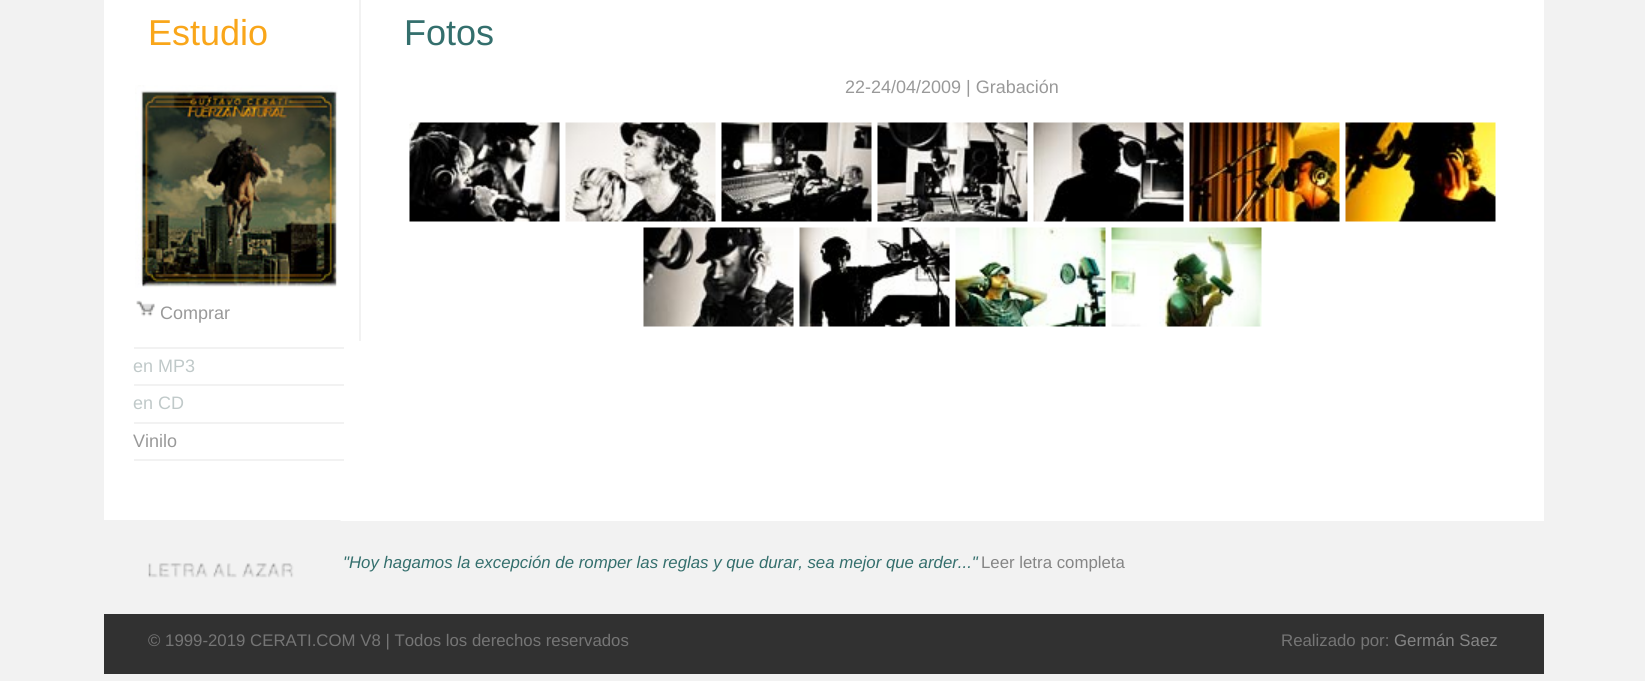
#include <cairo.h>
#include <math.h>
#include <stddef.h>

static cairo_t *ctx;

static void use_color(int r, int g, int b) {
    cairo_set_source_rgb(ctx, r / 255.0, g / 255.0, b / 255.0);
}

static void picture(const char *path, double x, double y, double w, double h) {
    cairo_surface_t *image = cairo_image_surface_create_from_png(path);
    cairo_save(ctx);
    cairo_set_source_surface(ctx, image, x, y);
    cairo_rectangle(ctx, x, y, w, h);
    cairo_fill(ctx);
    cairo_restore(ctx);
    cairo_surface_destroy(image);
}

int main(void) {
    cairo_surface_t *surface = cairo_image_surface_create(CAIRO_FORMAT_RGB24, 1645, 681);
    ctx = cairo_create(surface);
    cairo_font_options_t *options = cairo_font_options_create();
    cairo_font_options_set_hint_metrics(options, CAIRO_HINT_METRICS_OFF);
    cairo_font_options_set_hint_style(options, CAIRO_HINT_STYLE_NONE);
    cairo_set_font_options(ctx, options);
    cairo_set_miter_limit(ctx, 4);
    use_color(242, 242, 242);
    cairo_paint(ctx);
    use_color(255, 255, 255);
    cairo_rectangle(ctx, 104, 0, 1440, 521);
    cairo_fill(ctx);
    cairo_select_font_face(ctx, "Liberation Sans", CAIRO_FONT_SLANT_NORMAL, CAIRO_FONT_WEIGHT_NORMAL);
    cairo_set_font_size(ctx, 36);
    use_color(249, 166, 26);
    cairo_move_to(ctx, 148, 45);
    cairo_show_text(ctx, "Estudio");
    picture("img1.png", 135, 85, 203, 203);
    picture("img2.png", 136, 300, 19, 17);
    use_color(242, 242, 242);
    cairo_rectangle(ctx, 134, 347, 210, 2);
    cairo_fill(ctx);
    cairo_set_font_size(ctx, 18);
    use_color(153, 153, 153);
    cairo_move_to(ctx, 160, 319);
    cairo_show_text(ctx, "Comprar");
    use_color(242, 242, 242);
    cairo_rectangle(ctx, 134, 384, 210, 2);
    cairo_fill(ctx);
    use_color(192, 201, 201);
    cairo_move_to(ctx, 133, 372);
    cairo_show_text(ctx, "en MP3");
    use_color(242, 242, 242);
    cairo_rectangle(ctx, 134, 422, 210, 2);
    cairo_fill(ctx);
    use_color(192, 201, 201);
    cairo_move_to(ctx, 133, 409);
    cairo_show_text(ctx, "en CD");
    use_color(242, 242, 242);
    cairo_rectangle(ctx, 134, 459, 210, 2);
    cairo_fill(ctx);
    use_color(153, 153, 153);
    cairo_move_to(ctx, 133, 447);
    cairo_show_text(ctx, "Vinilo");
    use_color(242, 242, 242);
    cairo_rectangle(ctx, 359, 0, 2, 341);
    cairo_fill(ctx);
    cairo_set_font_size(ctx, 36);
    use_color(52, 111, 109);
    cairo_move_to(ctx, 404, 45);
    cairo_show_text(ctx, "Fotos");
    cairo_set_font_size(ctx, 18);
    use_color(153, 153, 153);
    cairo_move_to(ctx, 845, 93);
    cairo_show_text(ctx, "22-24/04/2009 | Grabación");
    picture("img3.png", 409, 122, 151, 100);
    picture("img4.png", 565, 122, 151, 100);
    picture("img5.png", 721, 122, 151, 100);
    picture("img6.png", 877, 122, 151, 100);
    picture("img7.png", 1033, 122, 151, 100);
    picture("img8.png", 1189, 122, 151, 100);
    picture("img9.png", 1345, 122, 151, 100);
    picture("img10.png", 643, 227, 151, 100);
    picture("img11.png", 799, 227, 151, 100);
    picture("img12.png", 955, 227, 151, 100);
    picture("img13.png", 1111, 227, 151, 100);
    picture("img14.png", 104, 520, 237, 58);
    cairo_select_font_face(ctx, "Liberation Sans", CAIRO_FONT_SLANT_ITALIC, CAIRO_FONT_WEIGHT_NORMAL);
    cairo_set_font_size(ctx, 16.8);
    use_color(52, 111, 109);
    cairo_move_to(ctx, 343, 568);
    cairo_show_text(ctx, "\"Hoy hagamos la excepción de romper las reglas y que durar, sea mejor que arder...\"");
    cairo_select_font_face(ctx, "Liberation Sans", CAIRO_FONT_SLANT_NORMAL, CAIRO_FONT_WEIGHT_NORMAL);
    use_color(133, 133, 133);
    cairo_move_to(ctx, 981, 568);
    cairo_show_text(ctx, "Leer letra completa");
    use_color(49, 49, 49);
    cairo_rectangle(ctx, 104, 614, 1440, 60);
    cairo_fill(ctx);
    use_color(117, 117, 117);
    cairo_move_to(ctx, 148, 646);
    cairo_show_text(ctx, "© 1999-2019 CERATI.COM V8 | Todos los derechos reservados");
    cairo_move_to(ctx, 1281, 646);
    cairo_show_text(ctx, "Realizado por:");
    use_color(133, 133, 133);
    cairo_move_to(ctx, 1394, 646);
    cairo_show_text(ctx, "Germán Saez");
    cairo_surface_write_to_png(surface, "result.png");
    cairo_font_options_destroy(options);
    cairo_destroy(ctx);
    cairo_surface_destroy(surface);
    return 0;
}
